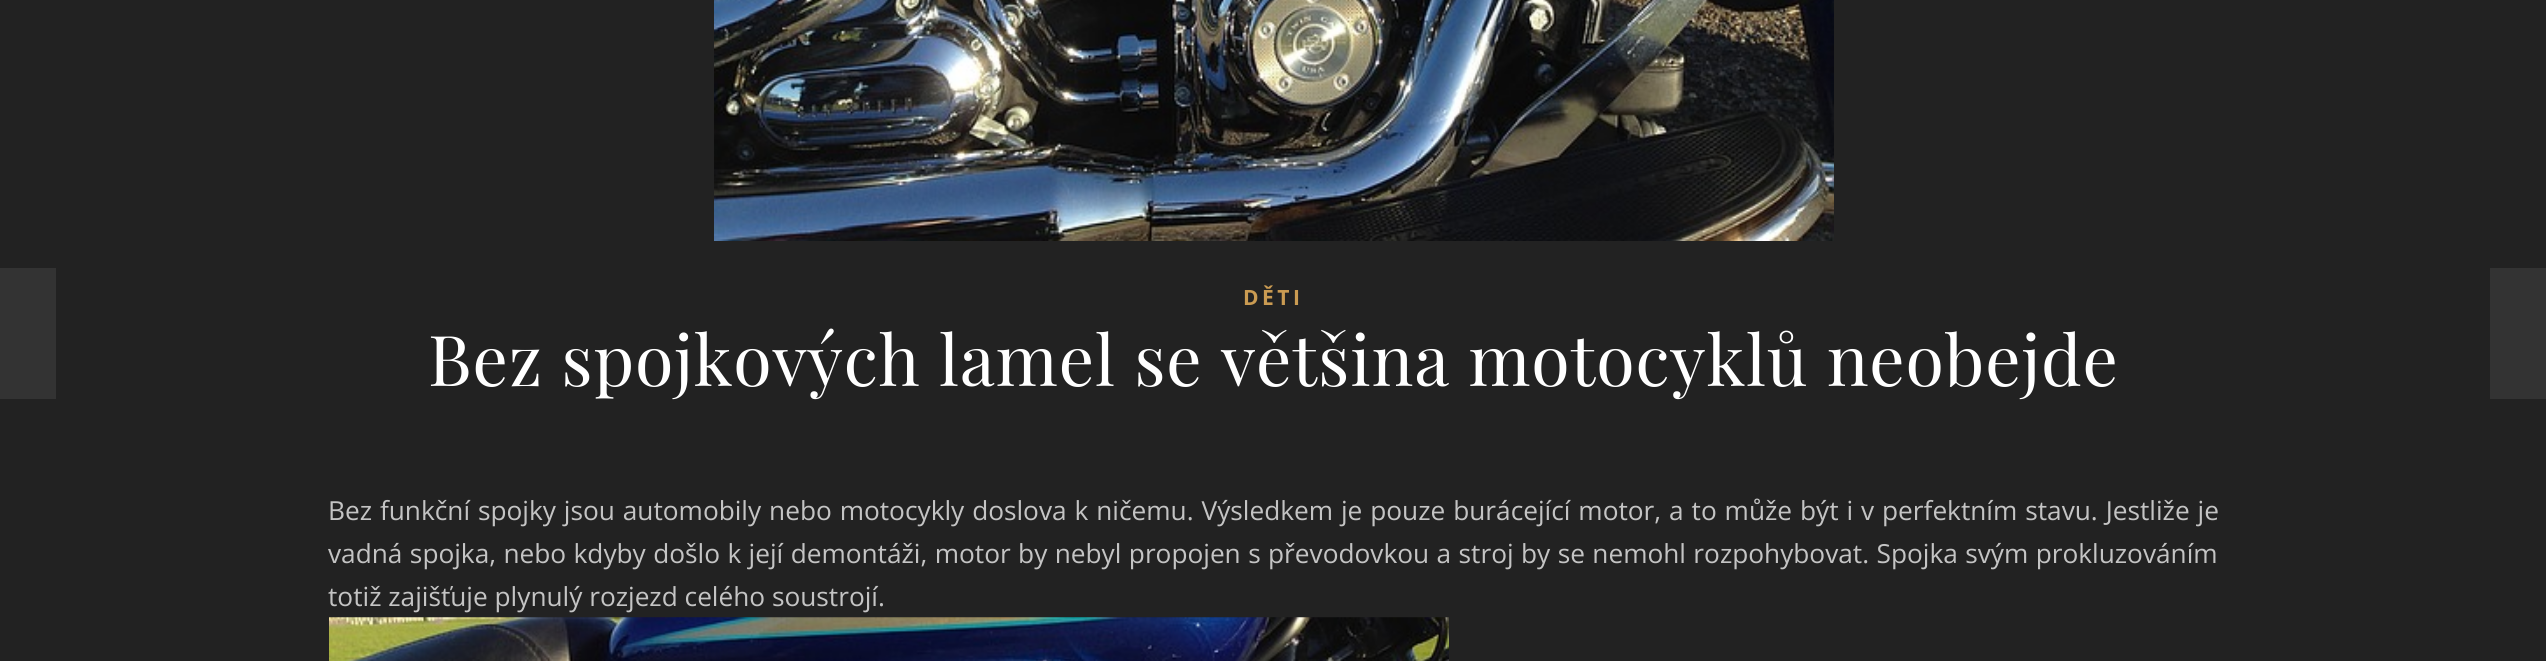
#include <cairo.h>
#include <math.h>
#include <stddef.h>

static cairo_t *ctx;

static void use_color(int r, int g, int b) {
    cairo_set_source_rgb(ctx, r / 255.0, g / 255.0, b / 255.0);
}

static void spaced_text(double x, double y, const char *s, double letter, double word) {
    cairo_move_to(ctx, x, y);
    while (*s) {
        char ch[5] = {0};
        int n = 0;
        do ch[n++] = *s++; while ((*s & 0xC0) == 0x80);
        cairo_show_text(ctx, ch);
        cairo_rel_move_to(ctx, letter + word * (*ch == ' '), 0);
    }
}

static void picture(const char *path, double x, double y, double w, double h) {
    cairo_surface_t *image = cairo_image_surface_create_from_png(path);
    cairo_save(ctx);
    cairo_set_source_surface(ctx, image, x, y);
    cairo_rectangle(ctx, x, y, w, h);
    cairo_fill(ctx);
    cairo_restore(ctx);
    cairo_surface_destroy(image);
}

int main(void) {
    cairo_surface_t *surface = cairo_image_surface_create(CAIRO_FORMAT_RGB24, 2546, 661);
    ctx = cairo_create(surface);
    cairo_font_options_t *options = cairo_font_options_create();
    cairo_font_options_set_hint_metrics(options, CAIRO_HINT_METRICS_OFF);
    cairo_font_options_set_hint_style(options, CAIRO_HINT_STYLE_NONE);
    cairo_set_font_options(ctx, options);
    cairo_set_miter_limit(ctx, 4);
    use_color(34, 34, 34);
    cairo_paint(ctx);
    use_color(51, 51, 51);
    cairo_rectangle(ctx, 0, 268, 56, 131);
    cairo_fill(ctx);
    picture("img1.png", 714, 0, 1120, 241);
    cairo_select_font_face(ctx, "Open Sans", CAIRO_FONT_SLANT_NORMAL, CAIRO_FONT_WEIGHT_BOLD);
    cairo_set_font_size(ctx, 21);
    use_color(202, 155, 82);
    spaced_text(1243, 305, "DĚTI", 3.5, 0);
    cairo_select_font_face(ctx, "Playfair Display", CAIRO_FONT_SLANT_NORMAL, CAIRO_FONT_WEIGHT_NORMAL);
    cairo_set_font_size(ctx, 70);
    use_color(255, 255, 255);
    spaced_text(428, 386, "Bez spojkových lamel se většina motocyklů neobejde", 0.88, 0);
    cairo_select_font_face(ctx, "Open Sans", CAIRO_FONT_SLANT_NORMAL, CAIRO_FONT_WEIGHT_NORMAL);
    cairo_set_font_size(ctx, 26.25);
    use_color(196, 196, 196);
    spaced_text(328, 520, "Bez funkční spojky jsou automobily nebo motocykly doslova k ničemu. Výsledkem je pouze burácející motor, a to může být i v perfektním stavu. Jestliže je", 0, 1.1);
    spaced_text(328, 563, "vadná spojka, nebo kdyby došlo k její demontáži, motor by nebyl propojen s převodovkou a stroj by se nemohl rozpohybovat. Spojka svým prokluzováním", 0, 0.6);
    cairo_move_to(ctx, 328, 606);
    cairo_show_text(ctx, "totiž zajišťuje plynulý rozjezd celého soustrojí.");
    picture("img2.png", 329, 617, 1120, 44);
    use_color(51, 51, 51);
    cairo_rectangle(ctx, 2490, 268, 56, 131);
    cairo_fill(ctx);
    cairo_surface_write_to_png(surface, "result.png");
    cairo_font_options_destroy(options);
    cairo_destroy(ctx);
    cairo_surface_destroy(surface);
    return 0;
}
